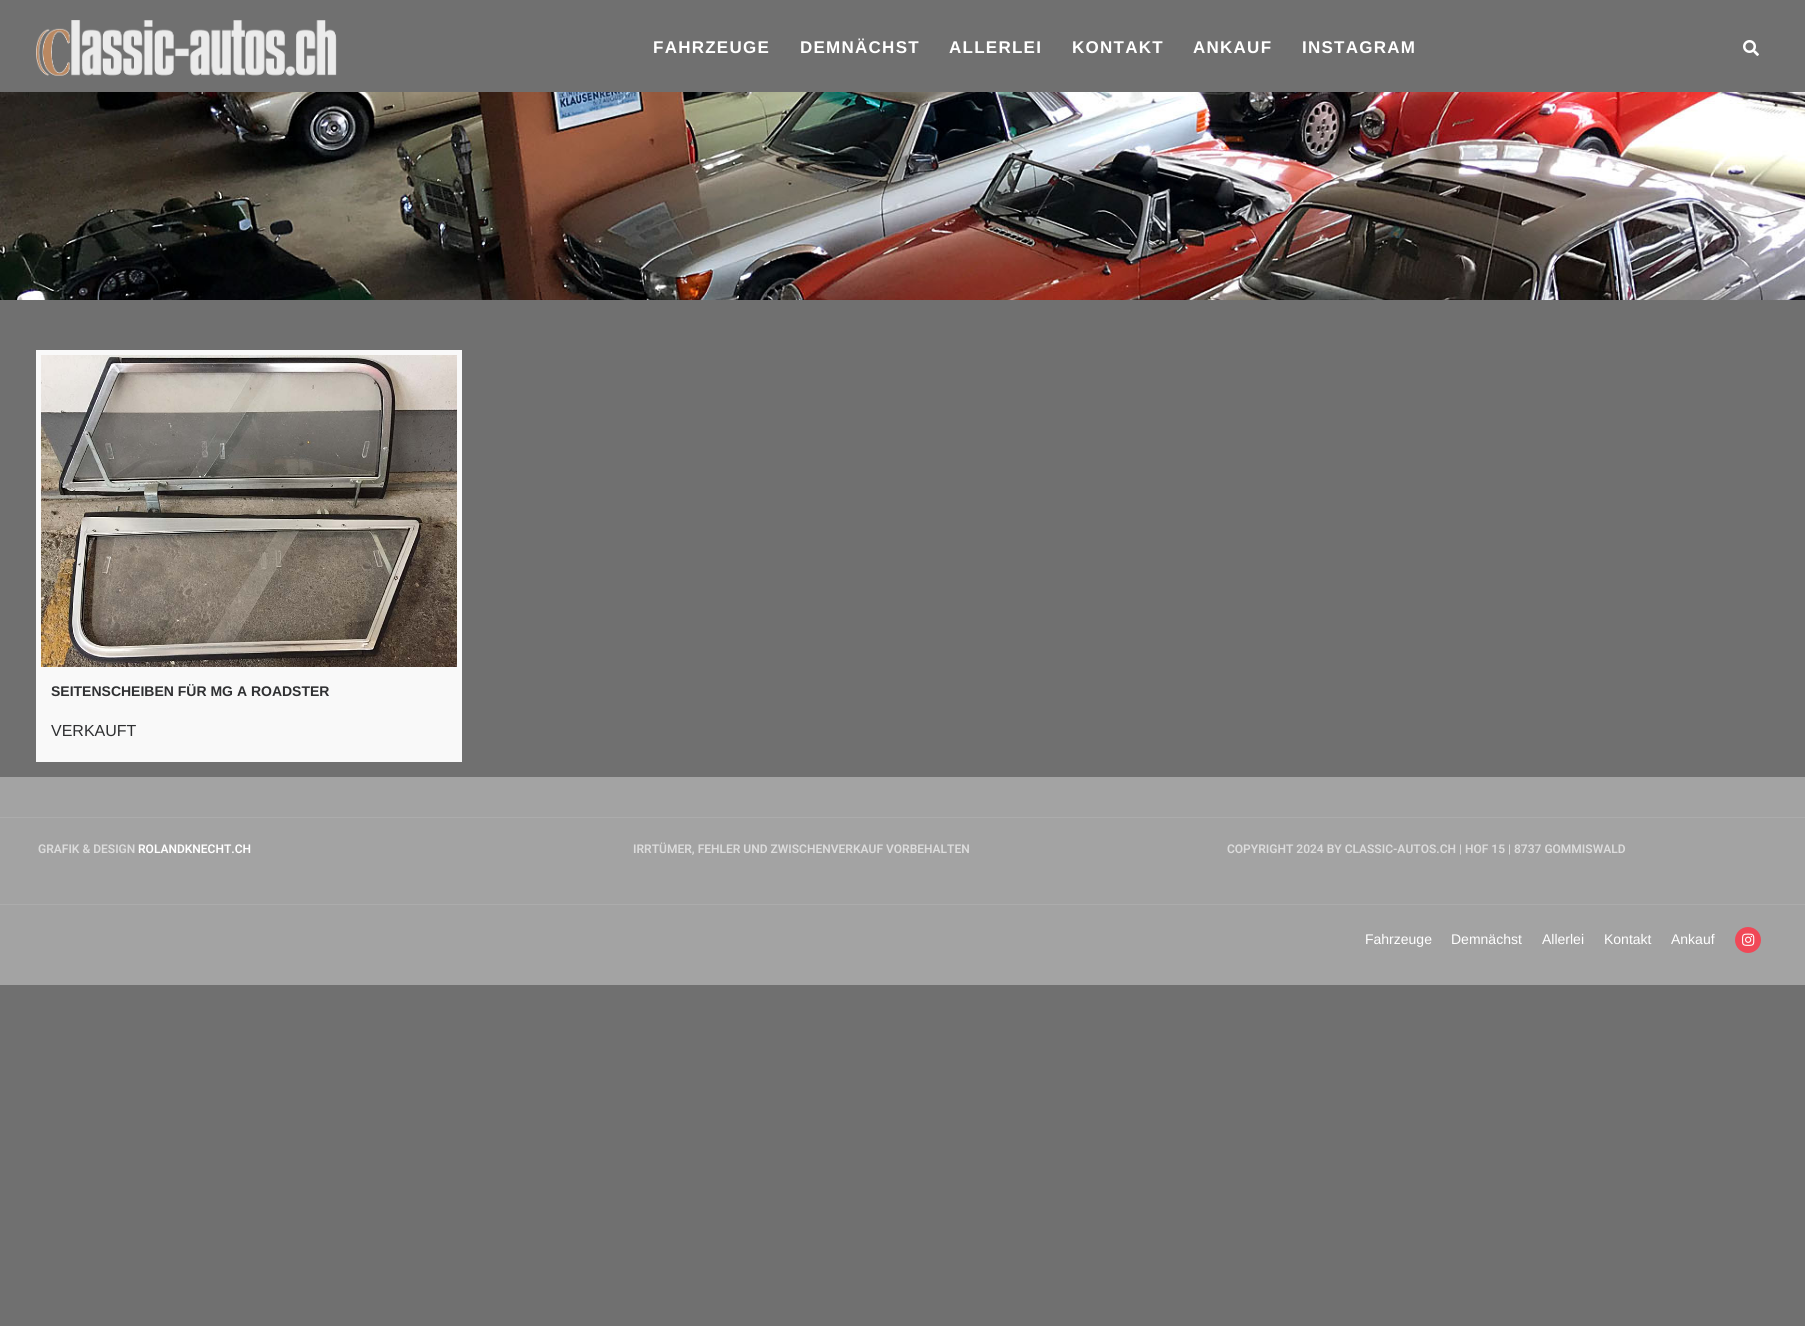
#include <cairo.h>
#include <math.h>
#include <stddef.h>

static cairo_t *ctx;

static void use_color(int r, int g, int b) {
    cairo_set_source_rgb(ctx, r / 255.0, g / 255.0, b / 255.0);
}

static void spaced_text(double x, double y, const char *s, double letter, double word) {
    cairo_move_to(ctx, x, y);
    while (*s) {
        char ch[5] = {0};
        int n = 0;
        do ch[n++] = *s++; while ((*s & 0xC0) == 0x80);
        cairo_show_text(ctx, ch);
        cairo_rel_move_to(ctx, letter + word * (*ch == ' '), 0);
    }
}

static void picture(const char *path, double x, double y, double w, double h) {
    cairo_surface_t *image = cairo_image_surface_create_from_png(path);
    cairo_save(ctx);
    cairo_set_source_surface(ctx, image, x, y);
    cairo_rectangle(ctx, x, y, w, h);
    cairo_fill(ctx);
    cairo_restore(ctx);
    cairo_surface_destroy(image);
}

int main(void) {
    cairo_surface_t *surface = cairo_image_surface_create(CAIRO_FORMAT_RGB24, 1805, 1326);
    ctx = cairo_create(surface);
    cairo_font_options_t *options = cairo_font_options_create();
    cairo_font_options_set_hint_metrics(options, CAIRO_HINT_METRICS_OFF);
    cairo_font_options_set_hint_style(options, CAIRO_HINT_STYLE_NONE);
    cairo_set_font_options(ctx, options);
    cairo_set_miter_limit(ctx, 4);
    use_color(112, 112, 112);
    cairo_paint(ctx);
    picture("img1.png", 36, 20, 301, 56);
    cairo_select_font_face(ctx, "Liberation Sans", CAIRO_FONT_SLANT_NORMAL, CAIRO_FONT_WEIGHT_BOLD);
    cairo_set_font_size(ctx, 17);
    use_color(255, 255, 255);
    spaced_text(653, 53, "FAHRZEUGE", 1.25, 0);
    spaced_text(800, 53, "DEMNÄCHST", 1.25, 0);
    spaced_text(949, 53, "ALLERLEI", 1.25, 0);
    spaced_text(1072, 53, "KONTAKT", 1.25, 0);
    spaced_text(1193, 53, "ANKAUF", 1.25, 0);
    spaced_text(1302, 53, "INSTAGRAM", 1.25, 0);
    picture("img2.png", 1743, 40, 16, 16);
    picture("img3.png", 0, 92, 1805, 208);
    use_color(249, 249, 249);
    cairo_rectangle(ctx, 36, 350, 426, 412);
    cairo_fill(ctx);
    picture("img4.png", 41, 355, 416, 312);
    cairo_set_font_size(ctx, 14);
    use_color(47, 48, 50);
    cairo_move_to(ctx, 51, 696);
    cairo_show_text(ctx, "SEITENSCHEIBEN FÜR MG A ROADSTER");
    cairo_select_font_face(ctx, "Liberation Sans", CAIRO_FONT_SLANT_NORMAL, CAIRO_FONT_WEIGHT_NORMAL);
    cairo_set_font_size(ctx, 16);
    cairo_move_to(ctx, 51, 736);
    cairo_show_text(ctx, "VERKAUFT");
    use_color(163, 163, 163);
    cairo_rectangle(ctx, 0, 777, 1805, 208);
    cairo_fill(ctx);
    use_color(172, 172, 172);
    cairo_rectangle(ctx, 0, 817, 1805, 1);
    cairo_fill(ctx);
    cairo_rectangle(ctx, 0, 904, 1805, 1);
    cairo_fill(ctx);
    cairo_select_font_face(ctx, "Roboto SemiBold", CAIRO_FONT_SLANT_NORMAL, CAIRO_FONT_WEIGHT_NORMAL);
    cairo_set_font_size(ctx, 12);
    use_color(220, 220, 220);
    cairo_move_to(ctx, 38, 853);
    cairo_show_text(ctx, "GRAFIK & DESIGN");
    use_color(255, 255, 255);
    cairo_move_to(ctx, 138, 853);
    cairo_show_text(ctx, "ROLANDKNECHT.CH");
    use_color(220, 220, 220);
    cairo_move_to(ctx, 633, 853);
    cairo_show_text(ctx, "IRRTÜMER, FEHLER UND ZWISCHENVERKAUF VORBEHALTEN");
    cairo_move_to(ctx, 1227, 853);
    cairo_show_text(ctx, "COPYRIGHT 2024 BY CLASSIC-AUTOS.CH | HOF 15 | 8737 GOMMISWALD");
    cairo_select_font_face(ctx, "Liberation Sans", CAIRO_FONT_SLANT_NORMAL, CAIRO_FONT_WEIGHT_NORMAL);
    cairo_set_font_size(ctx, 14);
    use_color(255, 255, 255);
    cairo_move_to(ctx, 1365, 944);
    cairo_show_text(ctx, "Fahrzeuge");
    cairo_move_to(ctx, 1451, 944);
    cairo_show_text(ctx, "Demnächst");
    cairo_move_to(ctx, 1542, 944);
    cairo_show_text(ctx, "Allerlei");
    cairo_move_to(ctx, 1604, 944);
    cairo_show_text(ctx, "Kontakt");
    cairo_move_to(ctx, 1671, 944);
    cairo_show_text(ctx, "Ankauf");
    use_color(240, 72, 87);
    cairo_new_path(ctx);
    cairo_arc(ctx, 1748, 940, 13, 0, 2 * M_PI);
    cairo_fill(ctx);
    picture("img5.png", 1742, 933, 13, 13);
    cairo_surface_write_to_png(surface, "result.png");
    cairo_font_options_destroy(options);
    cairo_destroy(ctx);
    cairo_surface_destroy(surface);
    return 0;
}
